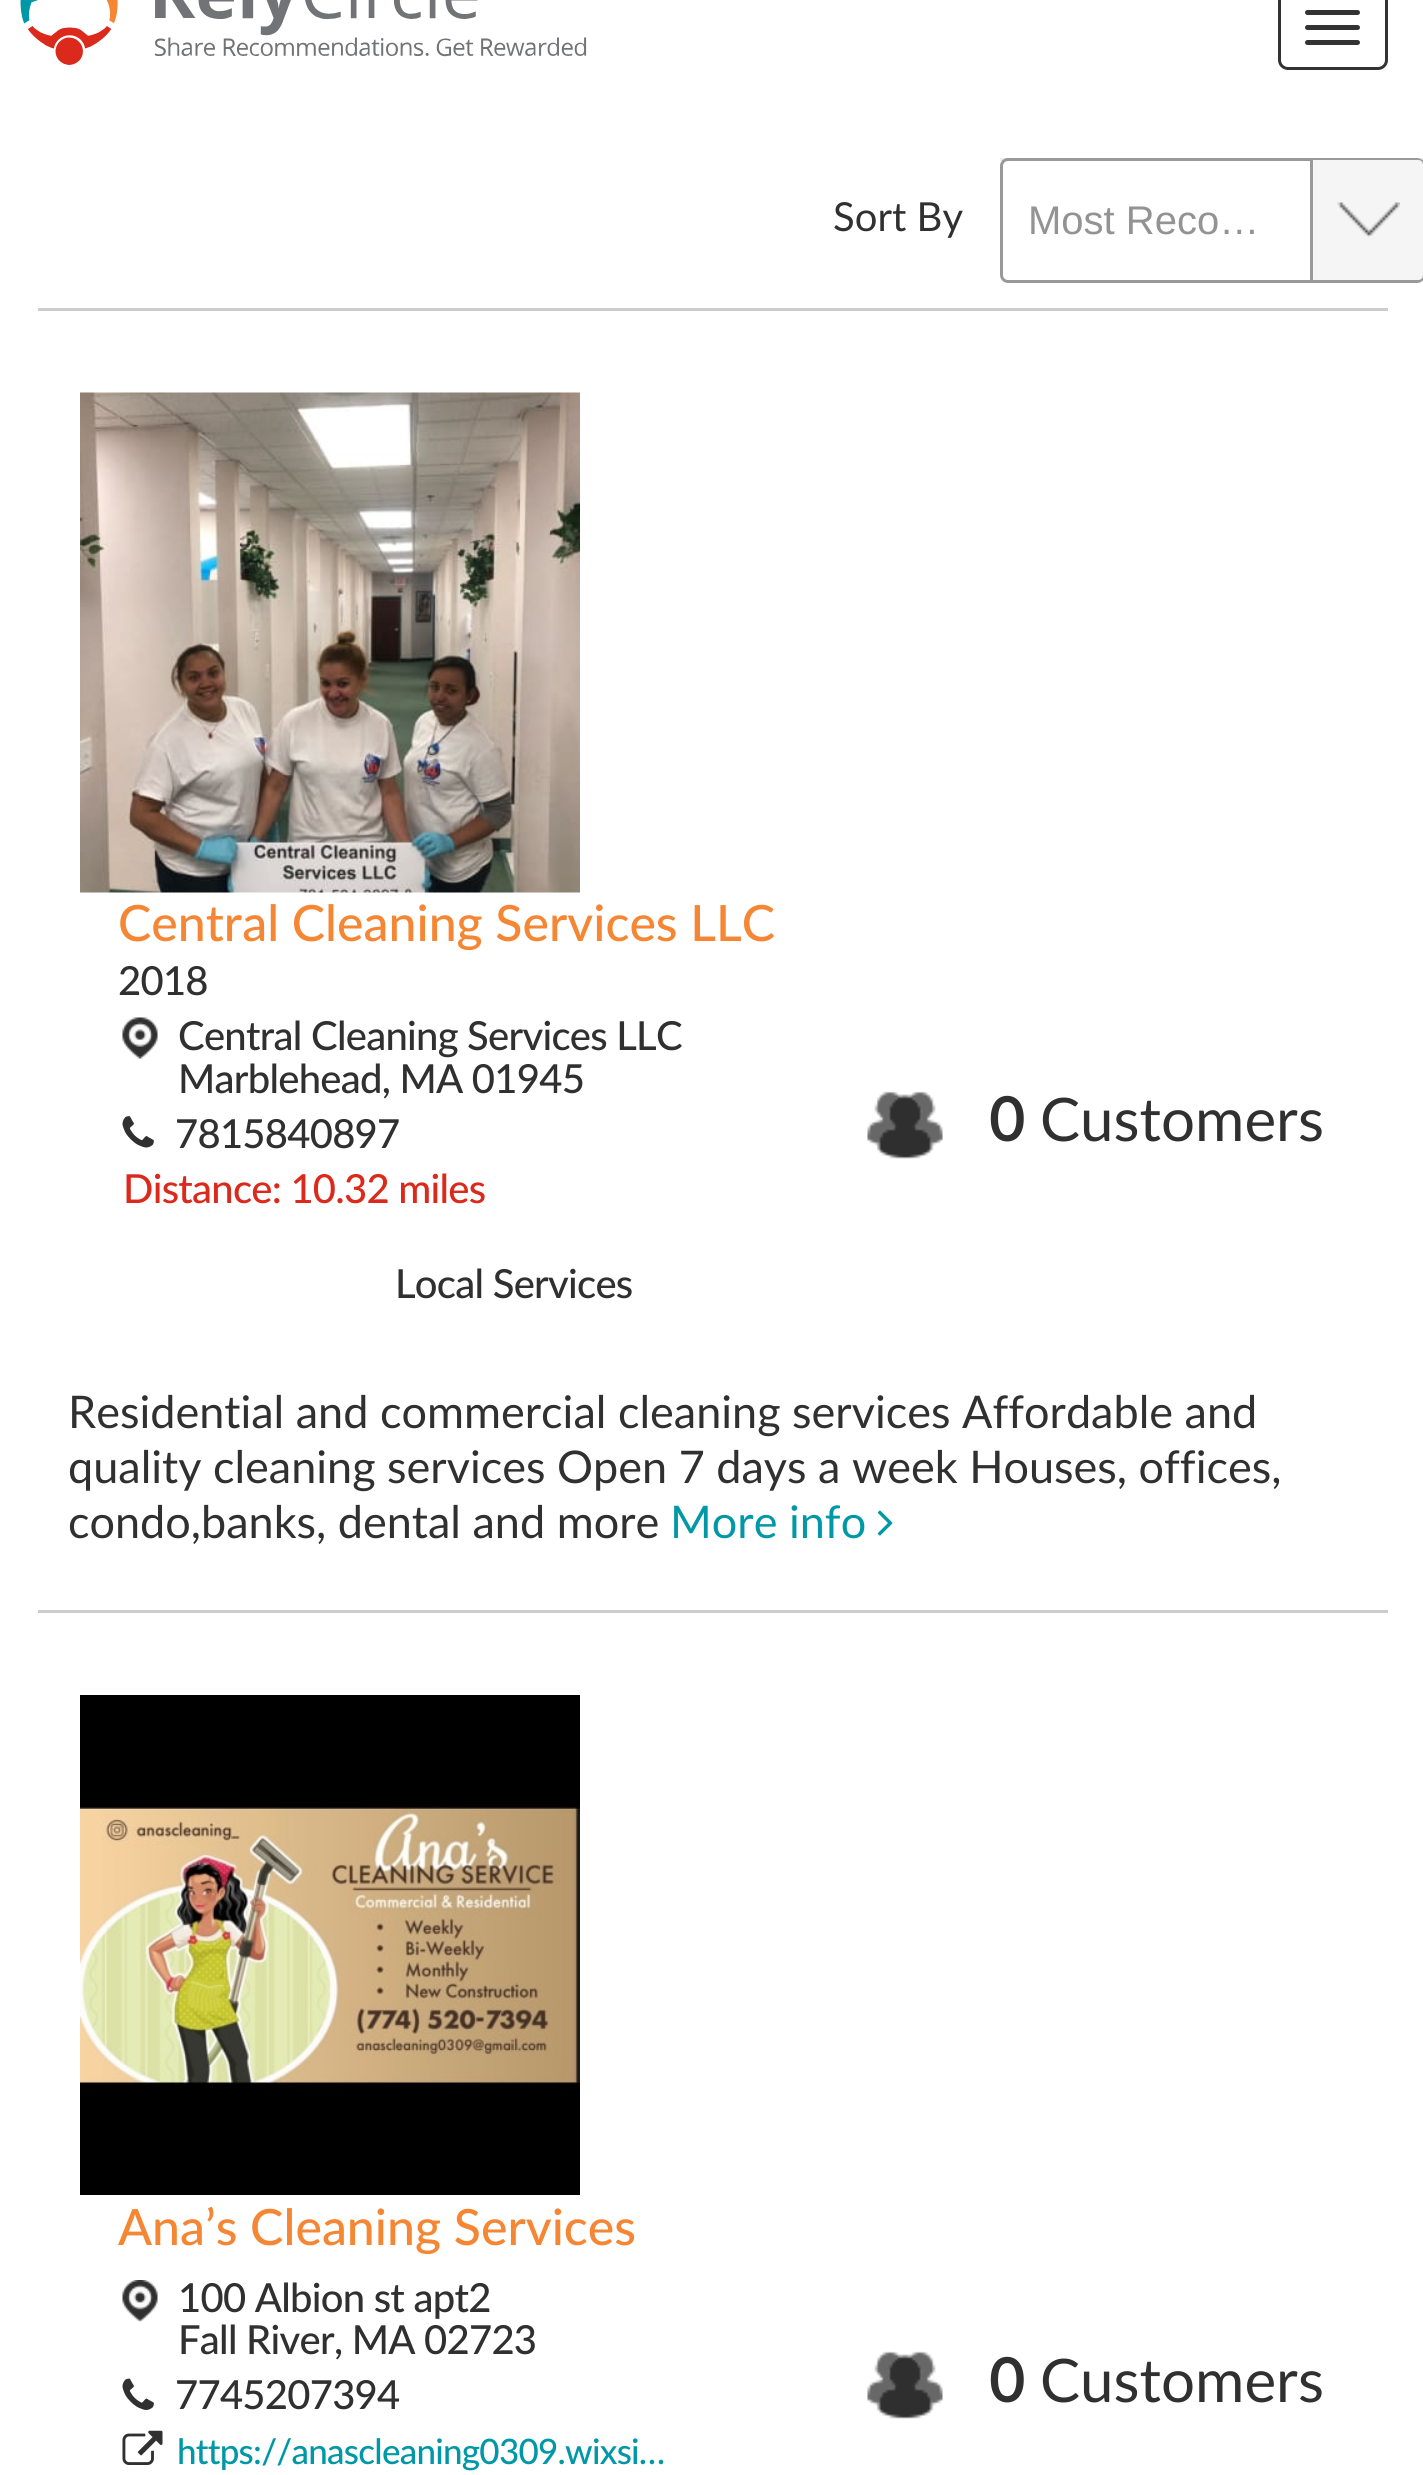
#include <cairo.h>
#include <math.h>
#include <stddef.h>

static cairo_t *ctx;

static void use_color(int r, int g, int b) {
    cairo_set_source_rgb(ctx, r / 255.0, g / 255.0, b / 255.0);
}

static void spaced_text(double x, double y, const char *s, double letter, double word) {
    cairo_move_to(ctx, x, y);
    while (*s) {
        char ch[5] = {0};
        int n = 0;
        do ch[n++] = *s++; while ((*s & 0xC0) == 0x80);
        cairo_show_text(ctx, ch);
        cairo_rel_move_to(ctx, letter + word * (*ch == ' '), 0);
    }
}

static void round_rect(double x, double y, double w, double h, double r) {
    cairo_new_sub_path(ctx);
    cairo_arc(ctx, x + w - r, y + h - r, r, 0, M_PI / 2);
    cairo_arc(ctx, x + r, y + h - r, r, M_PI / 2, M_PI);
    cairo_arc(ctx, x + r, y + r, r, M_PI, 1.5 * M_PI);
    cairo_arc(ctx, x + w - r, y + r, r, 1.5 * M_PI, 2 * M_PI);
    cairo_close_path(ctx);
}

static void picture(const char *path, double x, double y, double w, double h) {
    cairo_surface_t *image = cairo_image_surface_create_from_png(path);
    cairo_save(ctx);
    cairo_set_source_surface(ctx, image, x, y);
    cairo_rectangle(ctx, x, y, w, h);
    cairo_fill(ctx);
    cairo_restore(ctx);
    cairo_surface_destroy(image);
}

int main(void) {
    cairo_surface_t *surface = cairo_image_surface_create(CAIRO_FORMAT_RGB24, 1423, 2475);
    ctx = cairo_create(surface);
    cairo_font_options_t *options = cairo_font_options_create();
    cairo_font_options_set_hint_metrics(options, CAIRO_HINT_METRICS_OFF);
    cairo_font_options_set_hint_style(options, CAIRO_HINT_STYLE_NONE);
    cairo_set_font_options(ctx, options);
    cairo_set_miter_limit(ctx, 4);
    use_color(255, 255, 255);
    cairo_paint(ctx);
    picture("img1.png", 20, 0, 567, 65);
    round_rect(1279.5, -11.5, 107, 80, 8.5);
    use_color(51, 51, 51);
    cairo_set_line_width(ctx, 3);
    cairo_stroke(ctx);
    round_rect(1305, 10, 55, 5, 2.5);
    cairo_fill(ctx);
    round_rect(1305, 25, 55, 5, 2.5);
    cairo_fill(ctx);
    round_rect(1305, 40, 55, 5, 2.5);
    cairo_fill(ctx);
    cairo_select_font_face(ctx, "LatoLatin", CAIRO_FONT_SLANT_NORMAL, CAIRO_FONT_WEIGHT_NORMAL);
    cairo_set_font_size(ctx, 40);
    use_color(48, 48, 48);
    cairo_move_to(ctx, 833, 231);
    cairo_show_text(ctx, "Sort By");
    use_color(236, 236, 236);
    cairo_rectangle(ctx, 1000, 158, 423, 3);
    cairo_fill(ctx);
    use_color(255, 255, 255);
    round_rect(1001.5, 159.5, 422, 122, 6.5);
    cairo_fill_preserve(ctx);
    use_color(153, 153, 153);
    cairo_stroke(ctx);
    cairo_select_font_face(ctx, "Liberation Sans", CAIRO_FONT_SLANT_NORMAL, CAIRO_FONT_WEIGHT_NORMAL);
    use_color(147, 147, 147);
    cairo_move_to(ctx, 1028, 234);
    cairo_show_text(ctx, "Most Reco…");
    use_color(245, 245, 245);
    cairo_new_path(ctx);
    cairo_move_to(ctx, 1310, 160);
    cairo_line_to(ctx, 1418, 160);
    cairo_curve_to(ctx, 1421, 160, 1423, 162, 1423, 165);
    cairo_line_to(ctx, 1423, 275);
    cairo_curve_to(ctx, 1423, 278, 1421, 280, 1418, 280);
    cairo_line_to(ctx, 1310, 280);
    cairo_close_path(ctx);
    cairo_fill(ctx);
    picture("img2.png", 1337, 202, 63, 36);
    use_color(153, 153, 153);
    cairo_rectangle(ctx, 1310, 160, 3, 120);
    cairo_fill(ctx);
    use_color(204, 204, 204);
    cairo_rectangle(ctx, 38, 308, 1350, 3);
    cairo_fill(ctx);
    picture("img3.png", 80, 392, 500, 501);
    cairo_select_font_face(ctx, "LatoLatin Medium", CAIRO_FONT_SLANT_NORMAL, CAIRO_FONT_WEIGHT_NORMAL);
    cairo_set_font_size(ctx, 50);
    use_color(245, 134, 52);
    cairo_move_to(ctx, 118, 941);
    cairo_show_text(ctx, "Central Cleaning Services LLC");
    cairo_set_font_size(ctx, 40);
    use_color(48, 48, 48);
    spaced_text(118, 995, "2018", -0.75, 0);
    picture("img4.png", 122, 1017, 36, 42);
    spaced_text(178, 1050, "Central Cleaning Services LLC", -0.75, 0);
    spaced_text(178, 1093, "Marblehead, MA 01945", -0.75, 0);
    picture("img5.png", 122, 1116, 32, 32);
    spaced_text(175, 1148, "7815840897", -0.75, 0);
    use_color(219, 41, 28);
    spaced_text(123, 1203, "Distance: 10.32 miles", -0.75, 0);
    use_color(48, 48, 48);
    spaced_text(395, 1298, "Local Services", -0.75, 0);
    picture("img6.png", 867, 1091, 76, 68);
    cairo_select_font_face(ctx, "LatoLatin", CAIRO_FONT_SLANT_NORMAL, CAIRO_FONT_WEIGHT_BOLD);
    cairo_set_font_size(ctx, 60);
    cairo_move_to(ctx, 989, 1141);
    cairo_show_text(ctx, "0");
    cairo_select_font_face(ctx, "LatoLatin", CAIRO_FONT_SLANT_NORMAL, CAIRO_FONT_WEIGHT_NORMAL);
    cairo_move_to(ctx, 1040, 1141);
    cairo_show_text(ctx, "Customers");
    cairo_set_font_size(ctx, 45);
    cairo_move_to(ctx, 68, 1428);
    cairo_show_text(ctx, "Residential and commercial cleaning services Affordable and");
    cairo_move_to(ctx, 68, 1483);
    cairo_show_text(ctx, "quality cleaning services Open 7 days a week Houses, offices,");
    cairo_move_to(ctx, 68, 1538);
    cairo_show_text(ctx, "condo,banks, dental and more");
    use_color(0, 152, 166);
    cairo_move_to(ctx, 670, 1538);
    cairo_show_text(ctx, "More info");
    picture("img7.png", 877, 1510, 16, 26);
    use_color(204, 204, 204);
    cairo_rectangle(ctx, 38, 1610, 1350, 3);
    cairo_fill(ctx);
    picture("img8.png", 80, 1695, 500, 500);
    cairo_select_font_face(ctx, "LatoLatin Medium", CAIRO_FONT_SLANT_NORMAL, CAIRO_FONT_WEIGHT_NORMAL);
    cairo_set_font_size(ctx, 50);
    use_color(245, 134, 52);
    cairo_move_to(ctx, 118, 2245);
    cairo_show_text(ctx, "Ana’s Cleaning Services");
    picture("img9.png", 122, 2280, 36, 42);
    cairo_set_font_size(ctx, 40);
    use_color(48, 48, 48);
    spaced_text(178, 2312, "100 Albion st apt2", -0.75, 0);
    spaced_text(178, 2354, "Fall River, MA 02723", -0.75, 0);
    picture("img10.png", 122, 2378, 32, 32);
    spaced_text(175, 2409, "7745207394", -0.75, 0);
    picture("img11.png", 122, 2430, 41, 35);
    cairo_set_font_size(ctx, 35);
    use_color(0, 152, 166);
    spaced_text(177, 2464, "https://anascleaning0309.wixsi…", -0.75, 0);
    picture("img12.png", 867, 2351, 76, 68);
    cairo_select_font_face(ctx, "LatoLatin", CAIRO_FONT_SLANT_NORMAL, CAIRO_FONT_WEIGHT_BOLD);
    cairo_set_font_size(ctx, 60);
    use_color(48, 48, 48);
    cairo_move_to(ctx, 989, 2402);
    cairo_show_text(ctx, "0");
    cairo_select_font_face(ctx, "LatoLatin", CAIRO_FONT_SLANT_NORMAL, CAIRO_FONT_WEIGHT_NORMAL);
    cairo_move_to(ctx, 1040, 2402);
    cairo_show_text(ctx, "Customers");
    cairo_surface_write_to_png(surface, "result.png");
    cairo_font_options_destroy(options);
    cairo_destroy(ctx);
    cairo_surface_destroy(surface);
    return 0;
}
